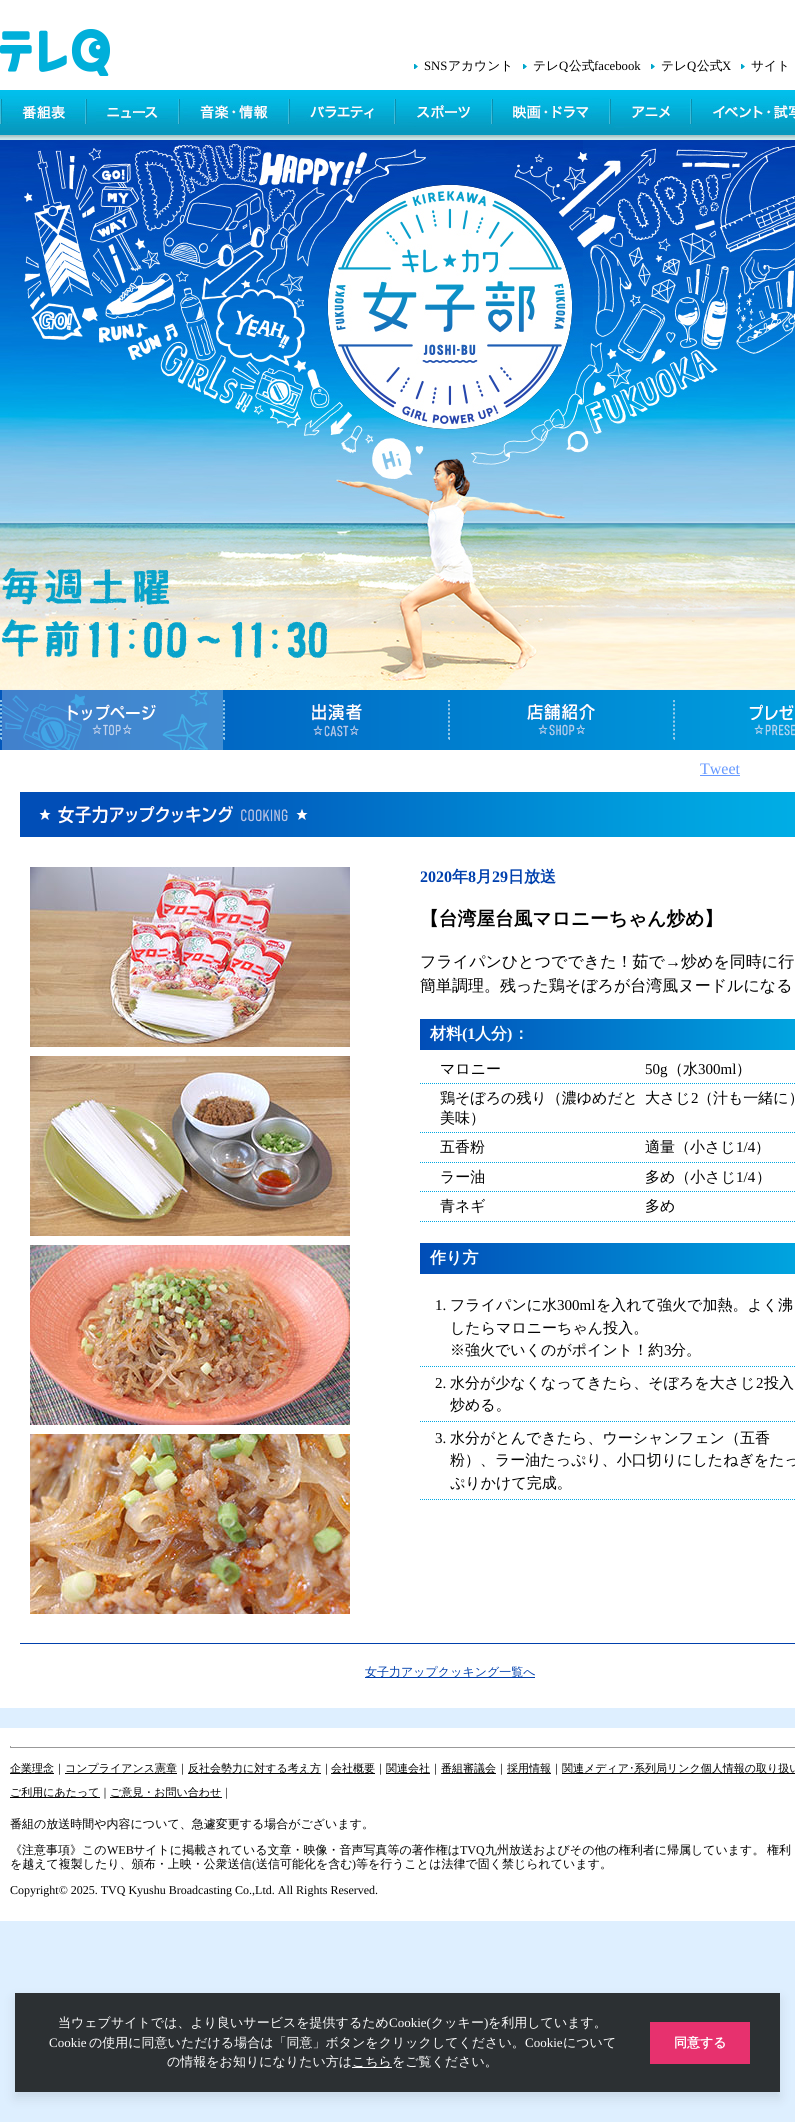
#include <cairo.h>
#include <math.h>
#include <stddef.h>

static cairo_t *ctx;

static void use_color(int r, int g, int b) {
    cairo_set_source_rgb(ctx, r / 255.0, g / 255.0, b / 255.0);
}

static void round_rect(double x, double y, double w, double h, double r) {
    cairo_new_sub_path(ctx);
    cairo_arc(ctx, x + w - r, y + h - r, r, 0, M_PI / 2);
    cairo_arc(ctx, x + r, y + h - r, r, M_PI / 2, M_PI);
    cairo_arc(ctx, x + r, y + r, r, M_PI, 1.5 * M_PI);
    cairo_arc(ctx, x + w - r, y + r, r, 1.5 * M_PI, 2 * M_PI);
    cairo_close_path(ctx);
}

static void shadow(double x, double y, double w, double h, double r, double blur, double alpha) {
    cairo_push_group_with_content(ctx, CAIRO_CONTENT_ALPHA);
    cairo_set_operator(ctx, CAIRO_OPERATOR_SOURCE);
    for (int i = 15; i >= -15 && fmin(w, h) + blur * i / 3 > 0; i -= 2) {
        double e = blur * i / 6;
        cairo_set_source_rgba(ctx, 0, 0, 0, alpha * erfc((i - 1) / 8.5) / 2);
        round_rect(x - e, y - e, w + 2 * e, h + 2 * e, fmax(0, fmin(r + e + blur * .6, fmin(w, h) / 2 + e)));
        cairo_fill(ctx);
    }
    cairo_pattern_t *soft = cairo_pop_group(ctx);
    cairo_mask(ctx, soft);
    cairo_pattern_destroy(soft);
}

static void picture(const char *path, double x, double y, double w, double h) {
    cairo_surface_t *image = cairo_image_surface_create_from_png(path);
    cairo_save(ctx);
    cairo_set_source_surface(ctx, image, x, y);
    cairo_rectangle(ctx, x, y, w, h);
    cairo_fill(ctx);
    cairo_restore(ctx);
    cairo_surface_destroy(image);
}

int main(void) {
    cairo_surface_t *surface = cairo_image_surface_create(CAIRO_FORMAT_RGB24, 795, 2122);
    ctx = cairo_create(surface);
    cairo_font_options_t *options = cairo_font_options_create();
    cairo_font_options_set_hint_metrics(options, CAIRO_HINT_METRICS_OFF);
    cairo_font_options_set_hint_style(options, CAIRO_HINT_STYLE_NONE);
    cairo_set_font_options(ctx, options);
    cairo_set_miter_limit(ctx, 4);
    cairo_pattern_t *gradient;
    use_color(222, 239, 255);
    cairo_paint(ctx);
    use_color(255, 255, 255);
    cairo_rectangle(ctx, 0, 0, 795, 90);
    cairo_fill(ctx);
    picture("img1.png", 0, 90, 795, 50);
    picture("img2.png", 0, 29, 110, 47);
    picture("img3.png", 414, 64, 4, 5);
    cairo_select_font_face(ctx, "Liberation Serif", CAIRO_FONT_SLANT_NORMAL, CAIRO_FONT_WEIGHT_NORMAL);
    cairo_set_font_size(ctx, 12.75);
    use_color(0, 0, 0);
    cairo_move_to(ctx, 424, 70);
    cairo_show_text(ctx, "SNS");
    cairo_select_font_face(ctx, "WenQuanYi Zen Hei Medium", CAIRO_FONT_SLANT_NORMAL, CAIRO_FONT_WEIGHT_NORMAL);
    cairo_move_to(ctx, 448, 70);
    cairo_show_text(ctx, "アカウント");
    picture("img3.png", 523, 64, 4, 5);
    cairo_move_to(ctx, 533, 70);
    cairo_show_text(ctx, "テレ");
    cairo_select_font_face(ctx, "Liberation Serif", CAIRO_FONT_SLANT_NORMAL, CAIRO_FONT_WEIGHT_NORMAL);
    cairo_move_to(ctx, 559, 70);
    cairo_show_text(ctx, "Q");
    cairo_select_font_face(ctx, "WenQuanYi Zen Hei Medium", CAIRO_FONT_SLANT_NORMAL, CAIRO_FONT_WEIGHT_NORMAL);
    cairo_move_to(ctx, 569, 70);
    cairo_show_text(ctx, "公式");
    cairo_select_font_face(ctx, "Liberation Serif", CAIRO_FONT_SLANT_NORMAL, CAIRO_FONT_WEIGHT_NORMAL);
    cairo_move_to(ctx, 594, 70);
    cairo_show_text(ctx, "facebook");
    picture("img3.png", 651, 64, 4, 5);
    cairo_select_font_face(ctx, "WenQuanYi Zen Hei Medium", CAIRO_FONT_SLANT_NORMAL, CAIRO_FONT_WEIGHT_NORMAL);
    cairo_move_to(ctx, 661, 70);
    cairo_show_text(ctx, "テレ");
    cairo_select_font_face(ctx, "Liberation Serif", CAIRO_FONT_SLANT_NORMAL, CAIRO_FONT_WEIGHT_NORMAL);
    cairo_move_to(ctx, 687, 70);
    cairo_show_text(ctx, "Q");
    cairo_select_font_face(ctx, "WenQuanYi Zen Hei Medium", CAIRO_FONT_SLANT_NORMAL, CAIRO_FONT_WEIGHT_NORMAL);
    cairo_move_to(ctx, 697, 70);
    cairo_show_text(ctx, "公式");
    cairo_select_font_face(ctx, "Liberation Serif", CAIRO_FONT_SLANT_NORMAL, CAIRO_FONT_WEIGHT_NORMAL);
    cairo_move_to(ctx, 722, 70);
    cairo_show_text(ctx, "X");
    picture("img3.png", 741, 64, 4, 5);
    cairo_select_font_face(ctx, "WenQuanYi Zen Hei Medium", CAIRO_FONT_SLANT_NORMAL, CAIRO_FONT_WEIGHT_NORMAL);
    cairo_move_to(ctx, 751, 70);
    cairo_show_text(ctx, "サイト");
    picture("img4.png", 0, 99, 87, 25);
    picture("img5.png", 96, 99, 84, 25);
    picture("img6.png", 183, 98, 108, 26);
    picture("img7.png", 295, 99, 102, 26);
    picture("img8.png", 399, 99, 94, 28);
    picture("img9.png", 512, 98, 99, 26);
    picture("img10.png", 614, 99, 78, 31);
    picture("img11.png", 695, 98, 100, 26);
    use_color(255, 255, 255);
    cairo_rectangle(ctx, 0, 750, 795, 958);
    cairo_fill(ctx);
    picture("img12.png", 0, 140, 795, 550);
    picture("img13.png", 0, 690, 225, 60);
    picture("img14.png", 225, 690, 225, 60);
    picture("img15.png", 450, 690, 225, 60);
    picture("img16.png", 675, 690, 120, 60);
    cairo_select_font_face(ctx, "Liberation Serif", CAIRO_FONT_SLANT_NORMAL, CAIRO_FONT_WEIGHT_NORMAL);
    cairo_set_font_size(ctx, 16);
    use_color(102, 153, 255);
    cairo_move_to(ctx, 700, 774);
    cairo_show_text(ctx, "Tweet");
    cairo_rectangle(ctx, 700, 775, 40, 1);
    cairo_fill(ctx);
    picture("img17.png", 20, 792, 775, 45);
    use_color(0, 64, 173);
    cairo_rectangle(ctx, 20, 1643, 775, 1);
    cairo_fill(ctx);
    picture("img18.png", 30, 867, 320, 180);
    picture("img19.png", 30, 1056, 320, 180);
    picture("img20.png", 30, 1245, 320, 180);
    picture("img21.png", 30, 1434, 320, 180);
    cairo_select_font_face(ctx, "Liberation Serif", CAIRO_FONT_SLANT_NORMAL, CAIRO_FONT_WEIGHT_BOLD);
    cairo_move_to(ctx, 420, 882);
    cairo_show_text(ctx, "2020");
    cairo_select_font_face(ctx, "WenQuanYi Zen Hei", CAIRO_FONT_SLANT_NORMAL, CAIRO_FONT_WEIGHT_BOLD);
    cairo_move_to(ctx, 452, 882);
    cairo_show_text(ctx, "年");
    cairo_select_font_face(ctx, "Liberation Serif", CAIRO_FONT_SLANT_NORMAL, CAIRO_FONT_WEIGHT_BOLD);
    cairo_move_to(ctx, 468, 882);
    cairo_show_text(ctx, "8");
    cairo_select_font_face(ctx, "WenQuanYi Zen Hei", CAIRO_FONT_SLANT_NORMAL, CAIRO_FONT_WEIGHT_BOLD);
    cairo_move_to(ctx, 476, 882);
    cairo_show_text(ctx, "月");
    cairo_select_font_face(ctx, "Liberation Serif", CAIRO_FONT_SLANT_NORMAL, CAIRO_FONT_WEIGHT_BOLD);
    cairo_move_to(ctx, 492, 882);
    cairo_show_text(ctx, "29");
    cairo_select_font_face(ctx, "WenQuanYi Zen Hei", CAIRO_FONT_SLANT_NORMAL, CAIRO_FONT_WEIGHT_BOLD);
    cairo_move_to(ctx, 508, 882);
    cairo_show_text(ctx, "日放送");
    cairo_set_font_size(ctx, 18.75);
    use_color(0, 0, 0);
    cairo_move_to(ctx, 420, 925);
    cairo_show_text(ctx, "【台湾屋台風マロニーちゃん炒め】");
    cairo_select_font_face(ctx, "WenQuanYi Zen Hei Medium", CAIRO_FONT_SLANT_NORMAL, CAIRO_FONT_WEIGHT_NORMAL);
    cairo_set_font_size(ctx, 16);
    cairo_move_to(ctx, 420, 967);
    cairo_show_text(ctx, "フライパンひとつでできた！茹で");
    cairo_select_font_face(ctx, "Liberation Serif", CAIRO_FONT_SLANT_NORMAL, CAIRO_FONT_WEIGHT_NORMAL);
    cairo_move_to(ctx, 665, 967);
    cairo_show_text(ctx, "→");
    cairo_select_font_face(ctx, "WenQuanYi Zen Hei Medium", CAIRO_FONT_SLANT_NORMAL, CAIRO_FONT_WEIGHT_NORMAL);
    cairo_move_to(ctx, 681, 967);
    cairo_show_text(ctx, "炒めを同時に行");
    cairo_move_to(ctx, 420, 991);
    cairo_show_text(ctx, "簡単調理。残った鶏そぼろが台湾風ヌードルになる");
    gradient = cairo_pattern_create_linear(420, 1035, 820, 1035);
    cairo_pattern_add_color_stop_rgba(gradient, 0, 0.004, 0.302, 0.718, 1);
    cairo_pattern_add_color_stop_rgba(gradient, 1, 0, 0.667, 0.886, 1);
    cairo_set_source(ctx, gradient);
    cairo_pattern_destroy(gradient);
    cairo_rectangle(ctx, 420, 1019, 375, 31);
    cairo_fill(ctx);
    cairo_select_font_face(ctx, "WenQuanYi Zen Hei", CAIRO_FONT_SLANT_NORMAL, CAIRO_FONT_WEIGHT_BOLD);
    use_color(255, 255, 255);
    cairo_move_to(ctx, 430, 1039);
    cairo_show_text(ctx, "材料");
    cairo_select_font_face(ctx, "Liberation Serif", CAIRO_FONT_SLANT_NORMAL, CAIRO_FONT_WEIGHT_BOLD);
    cairo_move_to(ctx, 462, 1039);
    cairo_show_text(ctx, "(1");
    cairo_select_font_face(ctx, "WenQuanYi Zen Hei", CAIRO_FONT_SLANT_NORMAL, CAIRO_FONT_WEIGHT_BOLD);
    cairo_move_to(ctx, 475, 1039);
    cairo_show_text(ctx, "人分");
    cairo_select_font_face(ctx, "Liberation Serif", CAIRO_FONT_SLANT_NORMAL, CAIRO_FONT_WEIGHT_BOLD);
    cairo_move_to(ctx, 507, 1039);
    cairo_show_text(ctx, ")");
    cairo_select_font_face(ctx, "WenQuanYi Zen Hei", CAIRO_FONT_SLANT_NORMAL, CAIRO_FONT_WEIGHT_BOLD);
    cairo_move_to(ctx, 513, 1039);
    cairo_show_text(ctx, "：");
    picture("img22.png", 420, 1083, 219, 1);
    cairo_select_font_face(ctx, "WenQuanYi Zen Hei Medium", CAIRO_FONT_SLANT_NORMAL, CAIRO_FONT_WEIGHT_NORMAL);
    cairo_set_font_size(ctx, 15);
    use_color(0, 0, 0);
    cairo_move_to(ctx, 440, 1074);
    cairo_show_text(ctx, "マロニー");
    picture("img23.png", 640, 1083, 155, 1);
    cairo_select_font_face(ctx, "Liberation Serif", CAIRO_FONT_SLANT_NORMAL, CAIRO_FONT_WEIGHT_NORMAL);
    cairo_move_to(ctx, 645, 1074);
    cairo_show_text(ctx, "50g");
    cairo_select_font_face(ctx, "WenQuanYi Zen Hei Medium", CAIRO_FONT_SLANT_NORMAL, CAIRO_FONT_WEIGHT_NORMAL);
    cairo_move_to(ctx, 668, 1074);
    cairo_show_text(ctx, "（水");
    cairo_select_font_face(ctx, "Liberation Serif", CAIRO_FONT_SLANT_NORMAL, CAIRO_FONT_WEIGHT_NORMAL);
    cairo_move_to(ctx, 698, 1074);
    cairo_show_text(ctx, "300ml");
    cairo_select_font_face(ctx, "WenQuanYi Zen Hei Medium", CAIRO_FONT_SLANT_NORMAL, CAIRO_FONT_WEIGHT_NORMAL);
    cairo_move_to(ctx, 736, 1074);
    cairo_show_text(ctx, "）");
    picture("img22.png", 420, 1132, 219, 1);
    cairo_move_to(ctx, 440, 1103);
    cairo_show_text(ctx, "鶏そぼろの残り（濃ゆめだと");
    cairo_move_to(ctx, 440, 1123);
    cairo_show_text(ctx, "美味）");
    picture("img23.png", 640, 1132, 155, 1);
    cairo_move_to(ctx, 645, 1103);
    cairo_show_text(ctx, "大さじ");
    cairo_select_font_face(ctx, "Liberation Serif", CAIRO_FONT_SLANT_NORMAL, CAIRO_FONT_WEIGHT_NORMAL);
    cairo_move_to(ctx, 691, 1103);
    cairo_show_text(ctx, "2");
    cairo_select_font_face(ctx, "WenQuanYi Zen Hei Medium", CAIRO_FONT_SLANT_NORMAL, CAIRO_FONT_WEIGHT_NORMAL);
    cairo_move_to(ctx, 698, 1103);
    cairo_show_text(ctx, "（汁も一緒に）");
    picture("img22.png", 420, 1162, 219, 1);
    cairo_move_to(ctx, 440, 1152);
    cairo_show_text(ctx, "五香粉");
    picture("img23.png", 640, 1162, 155, 1);
    cairo_move_to(ctx, 645, 1152);
    cairo_show_text(ctx, "適量（小さじ");
    cairo_select_font_face(ctx, "Liberation Serif", CAIRO_FONT_SLANT_NORMAL, CAIRO_FONT_WEIGHT_NORMAL);
    cairo_move_to(ctx, 736, 1152);
    cairo_show_text(ctx, "1/4");
    cairo_select_font_face(ctx, "WenQuanYi Zen Hei Medium", CAIRO_FONT_SLANT_NORMAL, CAIRO_FONT_WEIGHT_NORMAL);
    cairo_move_to(ctx, 755, 1152);
    cairo_show_text(ctx, "）");
    picture("img22.png", 420, 1191, 219, 1);
    cairo_move_to(ctx, 440, 1182);
    cairo_show_text(ctx, "ラー油");
    picture("img23.png", 640, 1191, 155, 1);
    cairo_move_to(ctx, 645, 1182);
    cairo_show_text(ctx, "多め（小さじ");
    cairo_select_font_face(ctx, "Liberation Serif", CAIRO_FONT_SLANT_NORMAL, CAIRO_FONT_WEIGHT_NORMAL);
    cairo_move_to(ctx, 736, 1182);
    cairo_show_text(ctx, "1/4");
    cairo_select_font_face(ctx, "WenQuanYi Zen Hei Medium", CAIRO_FONT_SLANT_NORMAL, CAIRO_FONT_WEIGHT_NORMAL);
    cairo_move_to(ctx, 756, 1182);
    cairo_show_text(ctx, "）");
    picture("img22.png", 420, 1221, 219, 1);
    cairo_move_to(ctx, 440, 1211);
    cairo_show_text(ctx, "青ネギ");
    picture("img23.png", 640, 1221, 155, 1);
    cairo_move_to(ctx, 645, 1211);
    cairo_show_text(ctx, "多め");
    gradient = cairo_pattern_create_linear(420, 1259, 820, 1259);
    cairo_pattern_add_color_stop_rgba(gradient, 0, 0.004, 0.302, 0.718, 1);
    cairo_pattern_add_color_stop_rgba(gradient, 1, 0, 0.667, 0.886, 1);
    cairo_set_source(ctx, gradient);
    cairo_pattern_destroy(gradient);
    cairo_rectangle(ctx, 420, 1243, 375, 31);
    cairo_fill(ctx);
    cairo_select_font_face(ctx, "WenQuanYi Zen Hei", CAIRO_FONT_SLANT_NORMAL, CAIRO_FONT_WEIGHT_BOLD);
    cairo_set_font_size(ctx, 16);
    use_color(255, 255, 255);
    cairo_move_to(ctx, 430, 1263);
    cairo_show_text(ctx, "作り方");
    picture("img24.png", 420, 1366, 375, 1);
    cairo_select_font_face(ctx, "Liberation Serif", CAIRO_FONT_SLANT_NORMAL, CAIRO_FONT_WEIGHT_NORMAL);
    cairo_set_font_size(ctx, 15);
    use_color(0, 0, 0);
    cairo_move_to(ctx, 435, 1310);
    cairo_show_text(ctx, "1.");
    cairo_select_font_face(ctx, "WenQuanYi Zen Hei Medium", CAIRO_FONT_SLANT_NORMAL, CAIRO_FONT_WEIGHT_NORMAL);
    cairo_move_to(ctx, 450, 1310);
    cairo_show_text(ctx, "フライパンに水");
    cairo_select_font_face(ctx, "Liberation Serif", CAIRO_FONT_SLANT_NORMAL, CAIRO_FONT_WEIGHT_NORMAL);
    cairo_move_to(ctx, 557, 1310);
    cairo_show_text(ctx, "300ml");
    cairo_select_font_face(ctx, "WenQuanYi Zen Hei Medium", CAIRO_FONT_SLANT_NORMAL, CAIRO_FONT_WEIGHT_NORMAL);
    cairo_move_to(ctx, 596, 1310);
    cairo_show_text(ctx, "を入れて強火で加熱。よく沸");
    cairo_move_to(ctx, 450, 1333);
    cairo_show_text(ctx, "したらマロニーちゃん投入。");
    cairo_move_to(ctx, 450, 1355);
    cairo_show_text(ctx, "※強火でいくのがポイント！約");
    cairo_select_font_face(ctx, "Liberation Serif", CAIRO_FONT_SLANT_NORMAL, CAIRO_FONT_WEIGHT_NORMAL);
    cairo_move_to(ctx, 664, 1355);
    cairo_show_text(ctx, "3");
    cairo_select_font_face(ctx, "WenQuanYi Zen Hei Medium", CAIRO_FONT_SLANT_NORMAL, CAIRO_FONT_WEIGHT_NORMAL);
    cairo_move_to(ctx, 671, 1355);
    cairo_show_text(ctx, "分。");
    picture("img24.png", 420, 1421, 375, 1);
    cairo_select_font_face(ctx, "Liberation Serif", CAIRO_FONT_SLANT_NORMAL, CAIRO_FONT_WEIGHT_NORMAL);
    cairo_move_to(ctx, 435, 1388);
    cairo_show_text(ctx, "2.");
    cairo_select_font_face(ctx, "WenQuanYi Zen Hei Medium", CAIRO_FONT_SLANT_NORMAL, CAIRO_FONT_WEIGHT_NORMAL);
    cairo_move_to(ctx, 450, 1388);
    cairo_show_text(ctx, "水分が少なくなってきたら、そぼろを大さじ");
    cairo_select_font_face(ctx, "Liberation Serif", CAIRO_FONT_SLANT_NORMAL, CAIRO_FONT_WEIGHT_NORMAL);
    cairo_move_to(ctx, 756, 1388);
    cairo_show_text(ctx, "2");
    cairo_select_font_face(ctx, "WenQuanYi Zen Hei Medium", CAIRO_FONT_SLANT_NORMAL, CAIRO_FONT_WEIGHT_NORMAL);
    cairo_move_to(ctx, 764, 1388);
    cairo_show_text(ctx, "投入");
    cairo_move_to(ctx, 450, 1410);
    cairo_show_text(ctx, "炒める。");
    picture("img24.png", 420, 1499, 375, 1);
    cairo_select_font_face(ctx, "Liberation Serif", CAIRO_FONT_SLANT_NORMAL, CAIRO_FONT_WEIGHT_NORMAL);
    cairo_move_to(ctx, 435, 1443);
    cairo_show_text(ctx, "3.");
    cairo_select_font_face(ctx, "WenQuanYi Zen Hei Medium", CAIRO_FONT_SLANT_NORMAL, CAIRO_FONT_WEIGHT_NORMAL);
    cairo_move_to(ctx, 450, 1443);
    cairo_show_text(ctx, "水分がとんできたら、ウーシャンフェン（五香");
    cairo_move_to(ctx, 450, 1465);
    cairo_show_text(ctx, "粉）、ラー油たっぷり、小口切りにしたねぎをたっ");
    cairo_move_to(ctx, 450, 1488);
    cairo_show_text(ctx, "ぷりかけて完成。");
    use_color(0, 64, 173);
    cairo_rectangle(ctx, 365, 1677, 170, 1);
    cairo_fill(ctx);
    cairo_set_font_size(ctx, 12);
    cairo_move_to(ctx, 365, 1676);
    cairo_show_text(ctx, "女子力アップクッキング一覧へ");
    use_color(255, 255, 255);
    cairo_rectangle(ctx, 0, 1728, 795, 193);
    cairo_fill(ctx);
    use_color(153, 153, 153);
    cairo_rectangle(ctx, 10, 1747, 785, 1);
    cairo_fill(ctx);
    use_color(159, 159, 159);
    cairo_rectangle(ctx, 10, 1746, 1, 2);
    cairo_fill(ctx);
    use_color(0, 0, 0);
    cairo_rectangle(ctx, 10, 1773, 44, 1);
    cairo_fill(ctx);
    cairo_set_font_size(ctx, 11);
    cairo_move_to(ctx, 10, 1772);
    cairo_show_text(ctx, "企業理念｜");
    cairo_rectangle(ctx, 65, 1773, 112, 1);
    cairo_fill(ctx);
    cairo_move_to(ctx, 65, 1772);
    cairo_show_text(ctx, "コンプライアンス憲章｜");
    cairo_rectangle(ctx, 188, 1773, 133, 1);
    cairo_fill(ctx);
    cairo_move_to(ctx, 188, 1772);
    cairo_show_text(ctx, "反社会勢力に対する考え方｜");
    cairo_rectangle(ctx, 331, 1773, 44, 1);
    cairo_fill(ctx);
    cairo_move_to(ctx, 331, 1772);
    cairo_show_text(ctx, "会社概要｜");
    cairo_rectangle(ctx, 386, 1773, 44, 1);
    cairo_fill(ctx);
    cairo_move_to(ctx, 386, 1772);
    cairo_show_text(ctx, "関連会社｜");
    cairo_rectangle(ctx, 441, 1773, 55, 1);
    cairo_fill(ctx);
    cairo_move_to(ctx, 441, 1772);
    cairo_show_text(ctx, "番組審議会｜");
    cairo_rectangle(ctx, 507, 1773, 44, 1);
    cairo_fill(ctx);
    cairo_move_to(ctx, 507, 1772);
    cairo_show_text(ctx, "採用情報｜");
    cairo_rectangle(ctx, 562, 1773, 233, 1);
    cairo_fill(ctx);
    cairo_move_to(ctx, 562, 1772);
    cairo_show_text(ctx, "関連メディア");
    cairo_select_font_face(ctx, "IPAGothic", CAIRO_FONT_SLANT_NORMAL, CAIRO_FONT_WEIGHT_NORMAL);
    cairo_move_to(ctx, 629, 1772);
    cairo_show_text(ctx, "･");
    cairo_select_font_face(ctx, "WenQuanYi Zen Hei Medium", CAIRO_FONT_SLANT_NORMAL, CAIRO_FONT_WEIGHT_NORMAL);
    cairo_move_to(ctx, 634, 1772);
    cairo_show_text(ctx, "系列局リンク個人情報の取り扱い");
    cairo_rectangle(ctx, 10, 1797, 90, 1);
    cairo_fill(ctx);
    cairo_move_to(ctx, 10, 1796);
    cairo_show_text(ctx, "ご利用にあたって｜");
    cairo_rectangle(ctx, 110, 1797, 112, 1);
    cairo_fill(ctx);
    cairo_move_to(ctx, 110, 1796);
    cairo_show_text(ctx, "ご意見・お問い合わせ｜");
    cairo_set_font_size(ctx, 12);
    cairo_move_to(ctx, 10, 1828);
    cairo_show_text(ctx, "番組の放送時間や内容について、急遽変更する場合がございます。");
    cairo_move_to(ctx, 10, 1854);
    cairo_show_text(ctx, "《注意事項》この");
    cairo_select_font_face(ctx, "Liberation Serif", CAIRO_FONT_SLANT_NORMAL, CAIRO_FONT_WEIGHT_NORMAL);
    cairo_move_to(ctx, 107, 1854);
    cairo_show_text(ctx, "WEB");
    cairo_select_font_face(ctx, "WenQuanYi Zen Hei Medium", CAIRO_FONT_SLANT_NORMAL, CAIRO_FONT_WEIGHT_NORMAL);
    cairo_move_to(ctx, 133, 1854);
    cairo_show_text(ctx, "サイトに掲載されている文章・映像・音声写真等の著作権は");
    cairo_select_font_face(ctx, "Liberation Serif", CAIRO_FONT_SLANT_NORMAL, CAIRO_FONT_WEIGHT_NORMAL);
    cairo_move_to(ctx, 460, 1854);
    cairo_show_text(ctx, "TVQ");
    cairo_select_font_face(ctx, "WenQuanYi Zen Hei Medium", CAIRO_FONT_SLANT_NORMAL, CAIRO_FONT_WEIGHT_NORMAL);
    cairo_move_to(ctx, 485, 1854);
    cairo_show_text(ctx, "九州放送およびその他の権利者に帰属しています。");
    cairo_move_to(ctx, 767, 1854);
    cairo_show_text(ctx, "権利");
    cairo_move_to(ctx, 10, 1868);
    cairo_show_text(ctx, "を越えて複製したり、頒布・上映・公衆送信");
    cairo_select_font_face(ctx, "Liberation Serif", CAIRO_FONT_SLANT_NORMAL, CAIRO_FONT_WEIGHT_NORMAL);
    cairo_move_to(ctx, 252, 1868);
    cairo_show_text(ctx, "(");
    cairo_select_font_face(ctx, "WenQuanYi Zen Hei Medium", CAIRO_FONT_SLANT_NORMAL, CAIRO_FONT_WEIGHT_NORMAL);
    cairo_move_to(ctx, 256, 1868);
    cairo_show_text(ctx, "送信可能化を含む");
    cairo_select_font_face(ctx, "Liberation Serif", CAIRO_FONT_SLANT_NORMAL, CAIRO_FONT_WEIGHT_NORMAL);
    cairo_move_to(ctx, 352, 1868);
    cairo_show_text(ctx, ")");
    cairo_select_font_face(ctx, "WenQuanYi Zen Hei Medium", CAIRO_FONT_SLANT_NORMAL, CAIRO_FONT_WEIGHT_NORMAL);
    cairo_move_to(ctx, 356, 1868);
    cairo_show_text(ctx, "等を行うことは法律で固く禁じられています。");
    cairo_select_font_face(ctx, "Liberation Serif", CAIRO_FONT_SLANT_NORMAL, CAIRO_FONT_WEIGHT_NORMAL);
    cairo_move_to(ctx, 10, 1894);
    cairo_show_text(ctx, "Copyright© 2025. TVQ Kyushu Broadcasting Co.,Ltd. All Rights Reserved.");
    use_color(0, 0, 0);
    shadow(15, 1999, 765, 99, 0, 6, 0.1);
    use_color(44, 48, 51);
    cairo_rectangle(ctx, 15, 1993, 765, 99);
    cairo_fill(ctx);
    cairo_select_font_face(ctx, "WenQuanYi Zen Hei Medium", CAIRO_FONT_SLANT_NORMAL, CAIRO_FONT_WEIGHT_NORMAL);
    cairo_set_font_size(ctx, 13);
    use_color(255, 255, 255);
    cairo_move_to(ctx, 58, 2027);
    cairo_show_text(ctx, "当ウェブサイトでは、より良いサービスを提供するため");
    cairo_select_font_face(ctx, "Liberation Serif", CAIRO_FONT_SLANT_NORMAL, CAIRO_FONT_WEIGHT_NORMAL);
    cairo_move_to(ctx, 389, 2027);
    cairo_show_text(ctx, "Cookie(");
    cairo_select_font_face(ctx, "WenQuanYi Zen Hei Medium", CAIRO_FONT_SLANT_NORMAL, CAIRO_FONT_WEIGHT_NORMAL);
    cairo_move_to(ctx, 431, 2027);
    cairo_show_text(ctx, "クッキー");
    cairo_select_font_face(ctx, "Liberation Serif", CAIRO_FONT_SLANT_NORMAL, CAIRO_FONT_WEIGHT_NORMAL);
    cairo_move_to(ctx, 484, 2027);
    cairo_show_text(ctx, ")");
    cairo_select_font_face(ctx, "WenQuanYi Zen Hei Medium", CAIRO_FONT_SLANT_NORMAL, CAIRO_FONT_WEIGHT_NORMAL);
    cairo_move_to(ctx, 488, 2027);
    cairo_show_text(ctx, "を利用しています。");
    cairo_select_font_face(ctx, "Liberation Serif", CAIRO_FONT_SLANT_NORMAL, CAIRO_FONT_WEIGHT_NORMAL);
    cairo_move_to(ctx, 49, 2047);
    cairo_show_text(ctx, "Cookie");
    cairo_select_font_face(ctx, "WenQuanYi Zen Hei Medium", CAIRO_FONT_SLANT_NORMAL, CAIRO_FONT_WEIGHT_NORMAL);
    cairo_move_to(ctx, 89, 2047);
    cairo_show_text(ctx, "の使用に同意いただける場合は「同意」ボタンをクリックしてください。");
    cairo_select_font_face(ctx, "Liberation Serif", CAIRO_FONT_SLANT_NORMAL, CAIRO_FONT_WEIGHT_NORMAL);
    cairo_move_to(ctx, 525, 2047);
    cairo_show_text(ctx, "Cookie");
    cairo_select_font_face(ctx, "WenQuanYi Zen Hei Medium", CAIRO_FONT_SLANT_NORMAL, CAIRO_FONT_WEIGHT_NORMAL);
    cairo_move_to(ctx, 563, 2047);
    cairo_show_text(ctx, "について");
    cairo_move_to(ctx, 167, 2066);
    cairo_show_text(ctx, "の情報をお知りになりたい方は");
    cairo_rectangle(ctx, 352, 2067, 40, 1);
    cairo_fill(ctx);
    cairo_move_to(ctx, 352, 2066);
    cairo_show_text(ctx, "こちらをご覧ください。");
    use_color(231, 49, 110);
    cairo_rectangle(ctx, 650, 2022, 100, 42);
    cairo_fill(ctx);
    cairo_select_font_face(ctx, "WenQuanYi Zen Hei", CAIRO_FONT_SLANT_NORMAL, CAIRO_FONT_WEIGHT_BOLD);
    use_color(255, 255, 255);
    cairo_move_to(ctx, 674, 2047);
    cairo_show_text(ctx, "同意する");
    cairo_surface_write_to_png(surface, "result.png");
    cairo_font_options_destroy(options);
    cairo_destroy(ctx);
    cairo_surface_destroy(surface);
    return 0;
}
